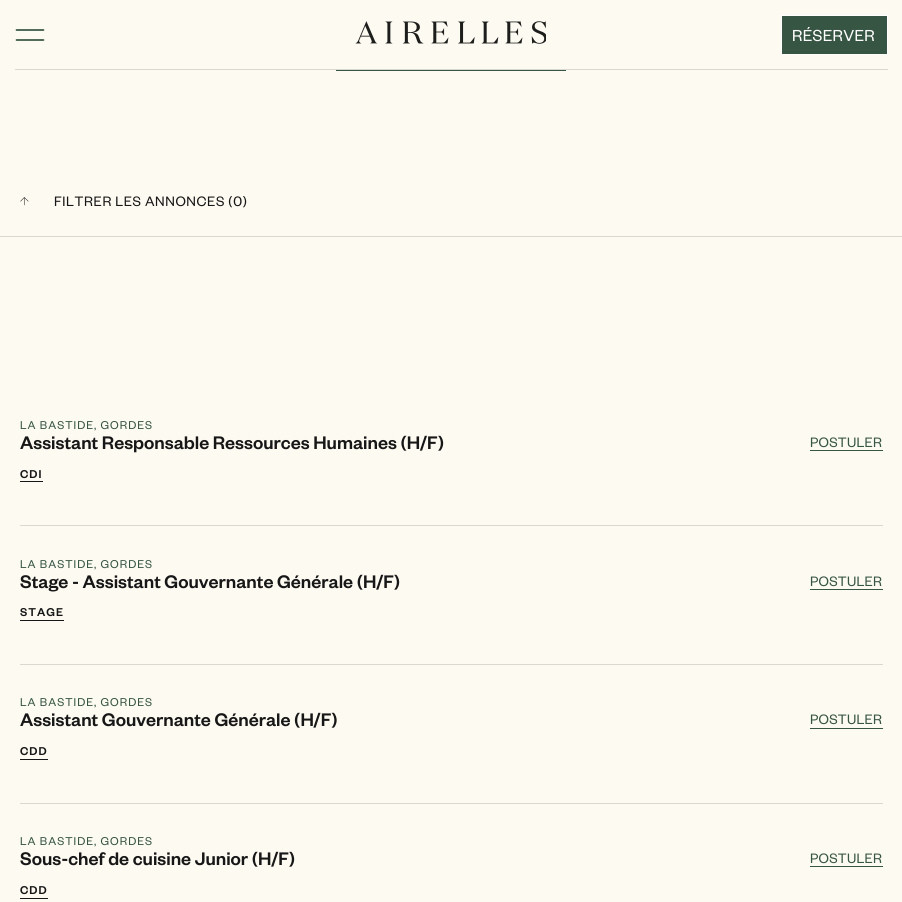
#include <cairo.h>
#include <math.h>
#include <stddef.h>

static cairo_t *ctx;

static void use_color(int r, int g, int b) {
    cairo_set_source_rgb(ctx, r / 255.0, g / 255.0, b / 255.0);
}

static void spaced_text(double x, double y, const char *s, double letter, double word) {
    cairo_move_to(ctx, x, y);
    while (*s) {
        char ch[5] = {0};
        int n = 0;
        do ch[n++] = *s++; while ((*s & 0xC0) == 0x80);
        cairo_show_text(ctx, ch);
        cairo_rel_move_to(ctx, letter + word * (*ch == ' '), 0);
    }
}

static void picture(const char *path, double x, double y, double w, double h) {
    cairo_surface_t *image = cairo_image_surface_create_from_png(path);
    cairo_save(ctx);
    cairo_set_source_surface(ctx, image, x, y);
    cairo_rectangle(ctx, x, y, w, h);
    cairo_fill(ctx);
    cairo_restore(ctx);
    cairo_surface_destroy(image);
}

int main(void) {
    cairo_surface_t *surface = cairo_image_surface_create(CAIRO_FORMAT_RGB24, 902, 902);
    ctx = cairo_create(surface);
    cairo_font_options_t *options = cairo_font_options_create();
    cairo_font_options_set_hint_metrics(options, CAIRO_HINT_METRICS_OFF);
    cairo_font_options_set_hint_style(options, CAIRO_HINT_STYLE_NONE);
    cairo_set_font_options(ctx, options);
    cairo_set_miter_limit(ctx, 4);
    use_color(252, 250, 241);
    cairo_paint(ctx);
    cairo_rectangle(ctx, 336.5, 29.5, 229, 41);
    use_color(55, 85, 67);
    cairo_set_line_width(ctx, 1);
    cairo_stroke(ctx);
    use_color(252, 250, 241);
    cairo_rectangle(ctx, 336, 29, 230, 41);
    cairo_fill(ctx);
    cairo_new_path(ctx);
    cairo_move_to(ctx, 16.5, 30);
    cairo_line_to(ctx, 43.5, 30);
    cairo_move_to(ctx, 16.5, 40);
    cairo_line_to(ctx, 43.5, 40);
    use_color(55, 85, 67);
    cairo_set_line_width(ctx, 1.7);
    cairo_set_line_cap(ctx, CAIRO_LINE_CAP_ROUND);
    cairo_set_line_join(ctx, CAIRO_LINE_JOIN_ROUND);
    cairo_stroke(ctx);
    picture("img1.png", 355, 21, 191, 23);
    cairo_rectangle(ctx, 781.5, 15.5, 106, 39);
    cairo_fill_preserve(ctx);
    use_color(255, 255, 255);
    cairo_set_line_width(ctx, 1);
    cairo_set_line_cap(ctx, CAIRO_LINE_CAP_BUTT);
    cairo_set_line_join(ctx, CAIRO_LINE_JOIN_MITER);
    cairo_stroke(ctx);
    cairo_select_font_face(ctx, "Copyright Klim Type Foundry", CAIRO_FONT_SLANT_NORMAL, CAIRO_FONT_WEIGHT_NORMAL);
    cairo_set_font_size(ctx, 17.5);
    spaced_text(792, 41, "RÉSERVER", 0.25, 0);
    use_color(218, 216, 208);
    cairo_rectangle(ctx, 15, 69, 873, 1);
    cairo_fill(ctx);
    cairo_rectangle(ctx, 0, 236, 902, 1);
    cairo_fill(ctx);
    picture("img2.png", 20, 197, 9, 9);
    cairo_set_font_size(ctx, 15);
    use_color(24, 23, 23);
    spaced_text(54, 206, "FILTRER LES ANNONCES (0)", 0.6, 0);
    use_color(218, 216, 208);
    cairo_rectangle(ctx, 20, 525, 863, 1);
    cairo_fill(ctx);
    cairo_set_font_size(ctx, 12.5);
    use_color(55, 85, 67);
    spaced_text(20, 429, "LA BASTIDE, GORDES", 1, 0);
    cairo_select_font_face(ctx, "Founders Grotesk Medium", CAIRO_FONT_SLANT_NORMAL, CAIRO_FONT_WEIGHT_NORMAL);
    cairo_set_font_size(ctx, 20);
    use_color(24, 23, 23);
    cairo_move_to(ctx, 20, 449);
    cairo_show_text(ctx, "Assistant Responsable Ressources Humaines (H/F)");
    use_color(55, 85, 67);
    cairo_rectangle(ctx, 810, 450, 73, 1);
    cairo_fill(ctx);
    cairo_select_font_face(ctx, "Copyright Klim Type Foundry", CAIRO_FONT_SLANT_NORMAL, CAIRO_FONT_WEIGHT_NORMAL);
    cairo_set_font_size(ctx, 15);
    spaced_text(810, 447, "POSTULER", 0.25, 0);
    cairo_select_font_face(ctx, "Founders Grotesk Medium", CAIRO_FONT_SLANT_NORMAL, CAIRO_FONT_WEIGHT_NORMAL);
    cairo_set_font_size(ctx, 12.5);
    use_color(24, 23, 23);
    spaced_text(20, 478, "CDI", 1, 0);
    cairo_rectangle(ctx, 20, 481, 23, 1);
    cairo_fill(ctx);
    use_color(218, 216, 208);
    cairo_rectangle(ctx, 20, 664, 863, 1);
    cairo_fill(ctx);
    cairo_select_font_face(ctx, "Copyright Klim Type Foundry", CAIRO_FONT_SLANT_NORMAL, CAIRO_FONT_WEIGHT_NORMAL);
    use_color(55, 85, 67);
    spaced_text(20, 568, "LA BASTIDE, GORDES", 1, 0);
    cairo_select_font_face(ctx, "Founders Grotesk Medium", CAIRO_FONT_SLANT_NORMAL, CAIRO_FONT_WEIGHT_NORMAL);
    cairo_set_font_size(ctx, 20);
    use_color(24, 23, 23);
    cairo_move_to(ctx, 20, 588);
    cairo_show_text(ctx, "Stage - Assistant Gouvernante Générale (H/F)");
    use_color(55, 85, 67);
    cairo_rectangle(ctx, 810, 589, 73, 1);
    cairo_fill(ctx);
    cairo_select_font_face(ctx, "Copyright Klim Type Foundry", CAIRO_FONT_SLANT_NORMAL, CAIRO_FONT_WEIGHT_NORMAL);
    cairo_set_font_size(ctx, 15);
    spaced_text(810, 586, "POSTULER", 0.25, 0);
    cairo_select_font_face(ctx, "Founders Grotesk Medium", CAIRO_FONT_SLANT_NORMAL, CAIRO_FONT_WEIGHT_NORMAL);
    cairo_set_font_size(ctx, 12.5);
    use_color(24, 23, 23);
    spaced_text(20, 616, "STAGE", 1, 0);
    cairo_rectangle(ctx, 20, 620, 44, 1);
    cairo_fill(ctx);
    use_color(218, 216, 208);
    cairo_rectangle(ctx, 20, 803, 863, 1);
    cairo_fill(ctx);
    cairo_select_font_face(ctx, "Copyright Klim Type Foundry", CAIRO_FONT_SLANT_NORMAL, CAIRO_FONT_WEIGHT_NORMAL);
    use_color(55, 85, 67);
    spaced_text(20, 706, "LA BASTIDE, GORDES", 1, 0);
    cairo_select_font_face(ctx, "Founders Grotesk Medium", CAIRO_FONT_SLANT_NORMAL, CAIRO_FONT_WEIGHT_NORMAL);
    cairo_set_font_size(ctx, 20);
    use_color(24, 23, 23);
    cairo_move_to(ctx, 20, 726);
    cairo_show_text(ctx, "Assistant Gouvernante Générale (H/F)");
    use_color(55, 85, 67);
    cairo_rectangle(ctx, 810, 728, 73, 1);
    cairo_fill(ctx);
    cairo_select_font_face(ctx, "Copyright Klim Type Foundry", CAIRO_FONT_SLANT_NORMAL, CAIRO_FONT_WEIGHT_NORMAL);
    cairo_set_font_size(ctx, 15);
    spaced_text(810, 724, "POSTULER", 0.25, 0);
    cairo_select_font_face(ctx, "Founders Grotesk Medium", CAIRO_FONT_SLANT_NORMAL, CAIRO_FONT_WEIGHT_NORMAL);
    cairo_set_font_size(ctx, 12.5);
    use_color(24, 23, 23);
    spaced_text(20, 755, "CDD", 1, 0);
    cairo_rectangle(ctx, 20, 759, 28, 1);
    cairo_fill(ctx);
    cairo_select_font_face(ctx, "Copyright Klim Type Foundry", CAIRO_FONT_SLANT_NORMAL, CAIRO_FONT_WEIGHT_NORMAL);
    use_color(55, 85, 67);
    spaced_text(20, 845, "LA BASTIDE, GORDES", 1, 0);
    cairo_select_font_face(ctx, "Founders Grotesk Medium", CAIRO_FONT_SLANT_NORMAL, CAIRO_FONT_WEIGHT_NORMAL);
    cairo_set_font_size(ctx, 20);
    use_color(24, 23, 23);
    cairo_move_to(ctx, 20, 865);
    cairo_show_text(ctx, "Sous-chef de cuisine Junior (H/F)");
    use_color(55, 85, 67);
    cairo_rectangle(ctx, 810, 866, 73, 1);
    cairo_fill(ctx);
    cairo_select_font_face(ctx, "Copyright Klim Type Foundry", CAIRO_FONT_SLANT_NORMAL, CAIRO_FONT_WEIGHT_NORMAL);
    cairo_set_font_size(ctx, 15);
    spaced_text(810, 863, "POSTULER", 0.25, 0);
    cairo_select_font_face(ctx, "Founders Grotesk Medium", CAIRO_FONT_SLANT_NORMAL, CAIRO_FONT_WEIGHT_NORMAL);
    cairo_set_font_size(ctx, 12.5);
    use_color(24, 23, 23);
    spaced_text(20, 894, "CDD", 1, 0);
    cairo_rectangle(ctx, 20, 898, 28, 1);
    cairo_fill(ctx);
    cairo_surface_write_to_png(surface, "result.png");
    cairo_font_options_destroy(options);
    cairo_destroy(ctx);
    cairo_surface_destroy(surface);
    return 0;
}
